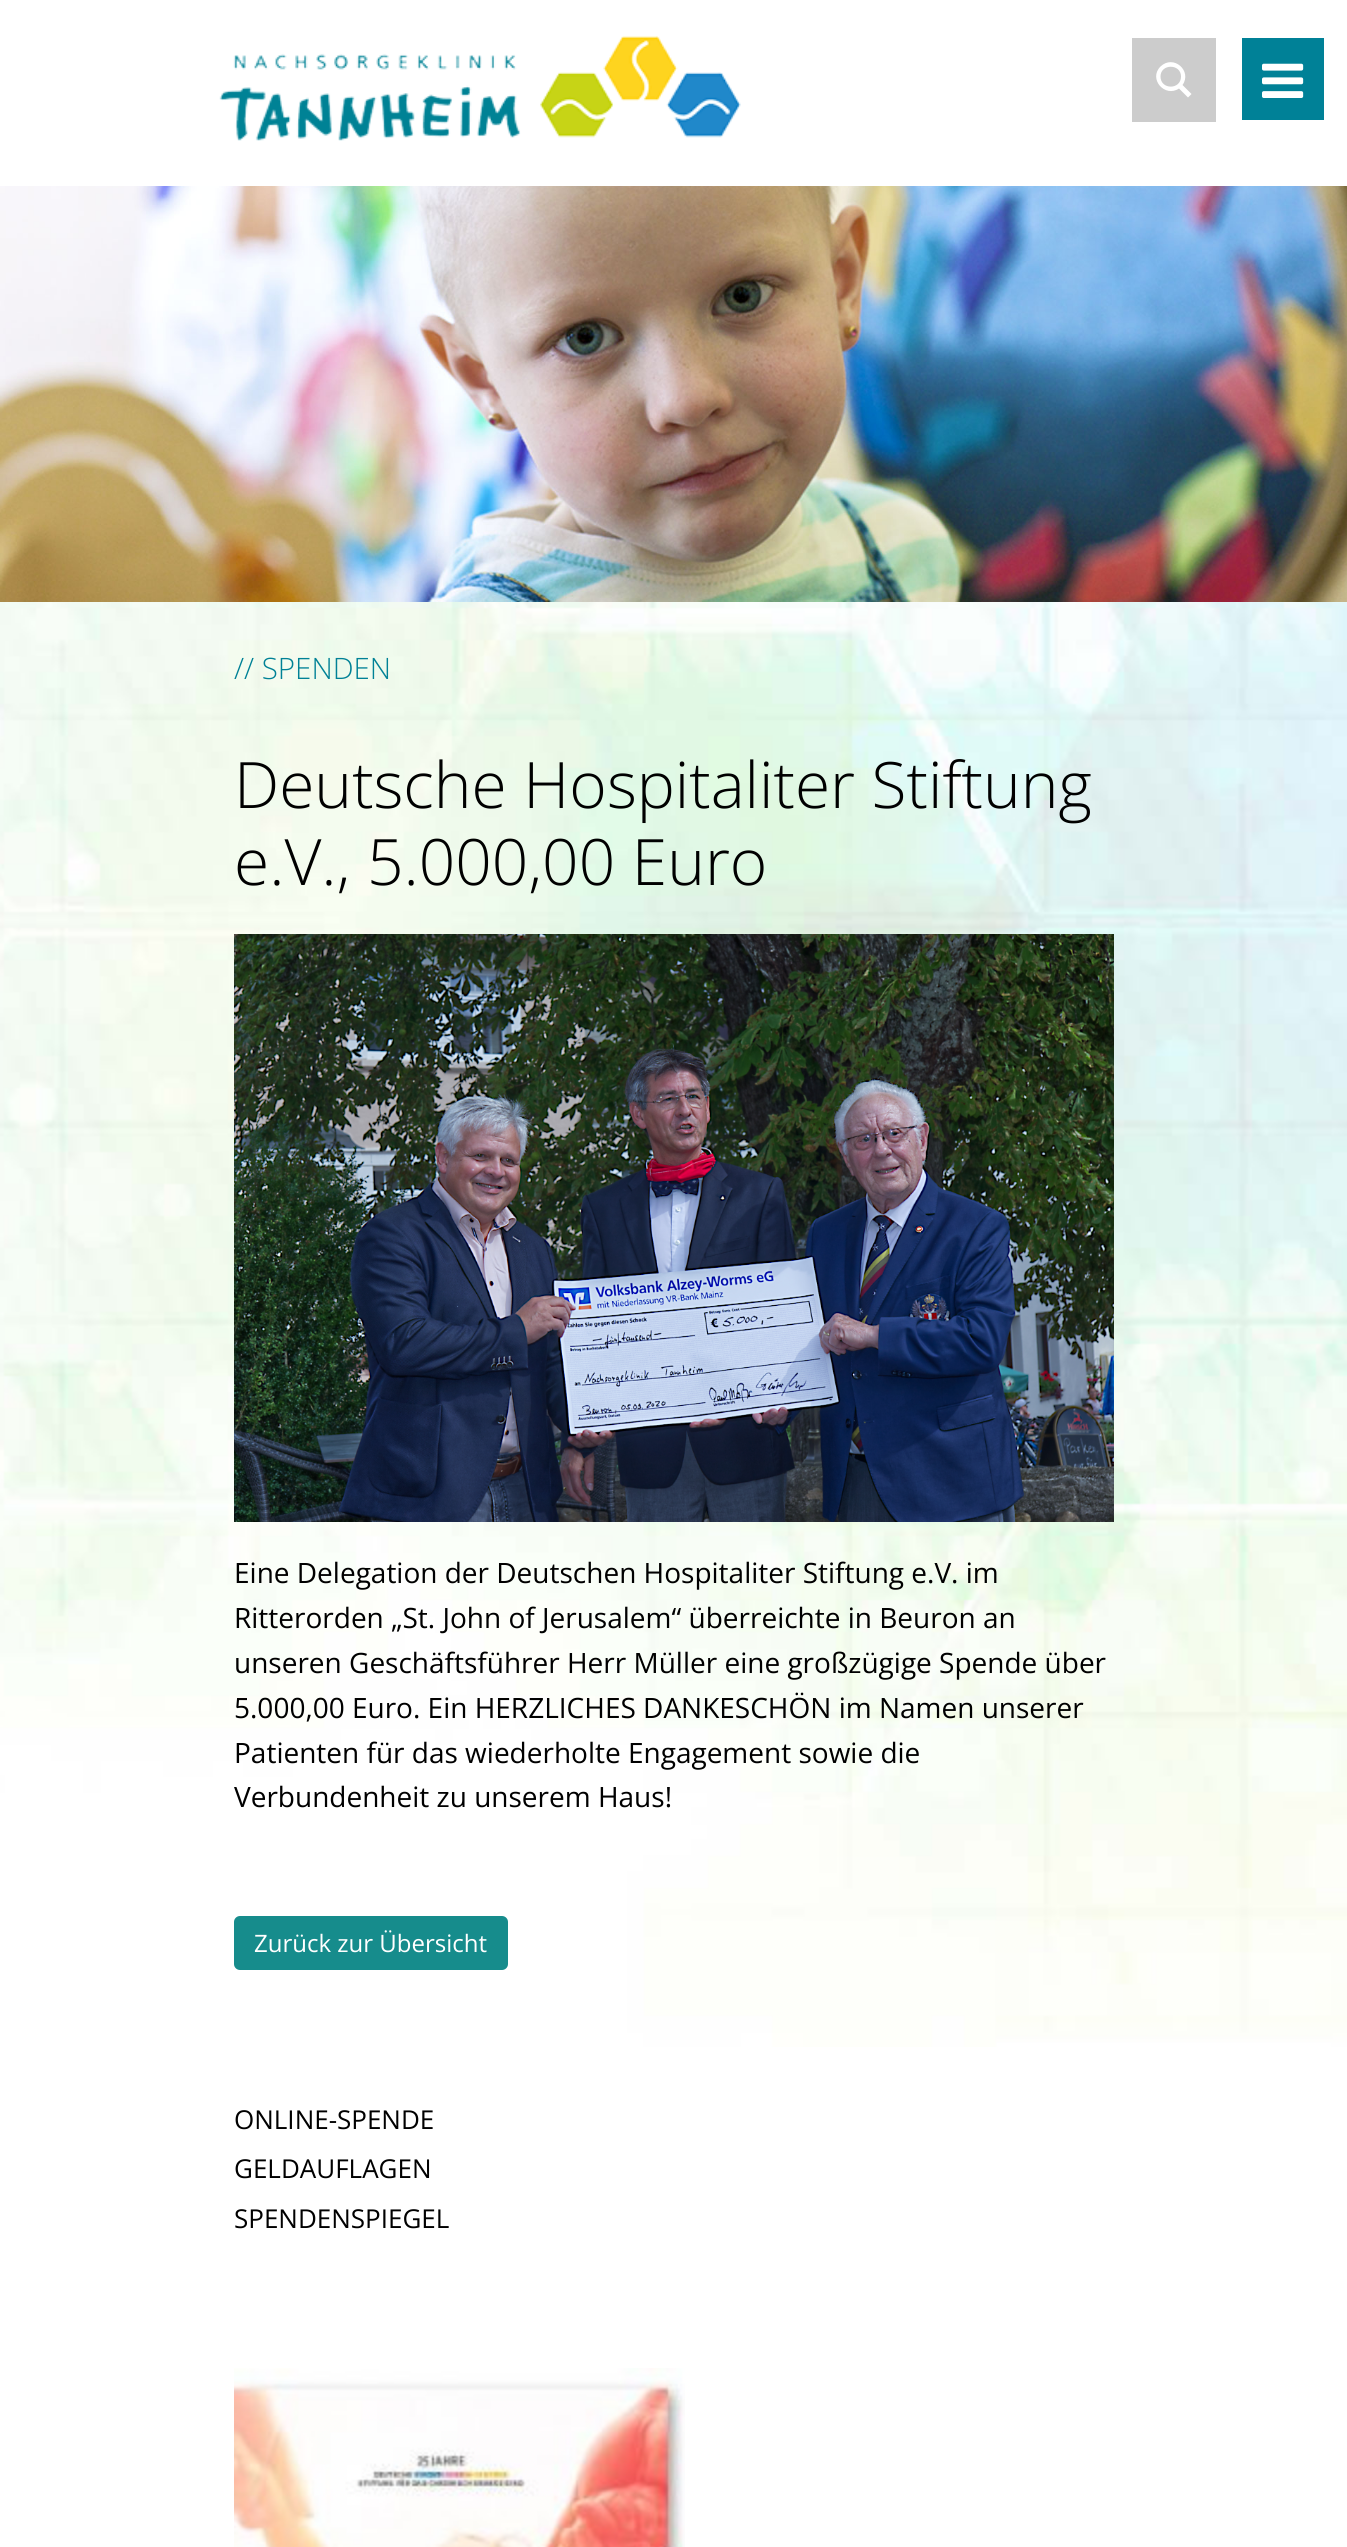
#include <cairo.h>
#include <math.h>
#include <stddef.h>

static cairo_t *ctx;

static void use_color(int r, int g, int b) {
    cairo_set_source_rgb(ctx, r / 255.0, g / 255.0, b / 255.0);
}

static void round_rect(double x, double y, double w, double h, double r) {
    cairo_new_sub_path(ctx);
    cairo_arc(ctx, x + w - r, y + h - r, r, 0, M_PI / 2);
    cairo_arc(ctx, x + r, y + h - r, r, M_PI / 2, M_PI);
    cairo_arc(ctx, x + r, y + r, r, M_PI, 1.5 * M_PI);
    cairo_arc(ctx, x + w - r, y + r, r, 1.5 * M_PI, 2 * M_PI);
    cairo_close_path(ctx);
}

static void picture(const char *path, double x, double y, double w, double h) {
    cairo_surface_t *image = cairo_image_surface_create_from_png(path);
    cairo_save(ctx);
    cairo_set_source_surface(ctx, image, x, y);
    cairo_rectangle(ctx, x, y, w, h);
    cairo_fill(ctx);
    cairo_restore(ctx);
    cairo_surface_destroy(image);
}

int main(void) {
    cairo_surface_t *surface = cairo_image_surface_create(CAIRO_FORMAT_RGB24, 1347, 2547);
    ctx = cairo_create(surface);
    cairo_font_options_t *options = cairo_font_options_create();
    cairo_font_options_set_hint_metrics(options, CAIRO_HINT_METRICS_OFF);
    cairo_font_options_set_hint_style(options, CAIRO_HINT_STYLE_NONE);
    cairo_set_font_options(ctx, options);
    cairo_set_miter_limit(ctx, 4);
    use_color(255, 255, 255);
    cairo_paint(ctx);
    picture("img1.png", 219, 35, 522, 106);
    use_color(204, 204, 204);
    cairo_rectangle(ctx, 1132, 38, 84, 84);
    cairo_fill(ctx);
    use_color(255, 255, 255);
    cairo_new_path(ctx);
    cairo_move_to(ctx, 1191.5, 94);
    cairo_line_to(ctx, 1182.5, 85);
    cairo_curve_to(ctx, 1192.5, 71, 1173.5, 54, 1160.5, 66.5);
    cairo_curve_to(ctx, 1148, 79, 1165, 98, 1179, 88.5);
    cairo_line_to(ctx, 1188, 97.5);
    cairo_close_path(ctx);
    cairo_move_to(ctx, 1160.5, 76.5);
    cairo_curve_to(ctx, 1160.5, 63.5, 1181, 63.5, 1181, 76.5);
    cairo_curve_to(ctx, 1181, 90, 1160.5, 90, 1160.5, 76.5);
    cairo_close_path(ctx);
    cairo_fill(ctx);
    use_color(0, 129, 151);
    cairo_rectangle(ctx, 1242, 38, 82, 82);
    cairo_fill(ctx);
    picture("img2.png", 1262, 63, 42, 35);
    picture("img3.png", 0, 602, 1347, 1445);
    picture("img4.png", 0, 186, 1347, 416);
    cairo_select_font_face(ctx, "Open Sans Light", CAIRO_FONT_SLANT_NORMAL, CAIRO_FONT_WEIGHT_NORMAL);
    cairo_set_font_size(ctx, 29.5);
    use_color(0, 129, 150);
    cairo_move_to(ctx, 234, 679);
    cairo_show_text(ctx, "// SPENDEN");
    cairo_set_font_size(ctx, 64);
    use_color(0, 0, 0);
    cairo_move_to(ctx, 234, 808);
    cairo_show_text(ctx, "Deutsche Hospitaliter Stiftung");
    cairo_move_to(ctx, 234, 885);
    cairo_show_text(ctx, "e.V., 5.000,00 Euro");
    picture("img5.png", 234, 934, 880, 588);
    cairo_select_font_face(ctx, "Open Sans", CAIRO_FONT_SLANT_NORMAL, CAIRO_FONT_WEIGHT_NORMAL);
    cairo_set_font_size(ctx, 28);
    cairo_move_to(ctx, 234, 1583);
    cairo_show_text(ctx, "Eine Delegation der Deutschen Hospitaliter Stiftung e.V. im");
    cairo_move_to(ctx, 234, 1628);
    cairo_show_text(ctx, "Ritterorden „St. John of Jerusalem“ überreichte in Beuron an");
    cairo_move_to(ctx, 234, 1673);
    cairo_show_text(ctx, "unseren Geschäftsführer Herr Müller eine großzügige Spende über");
    cairo_move_to(ctx, 234, 1718);
    cairo_show_text(ctx, "5.000,00 Euro. Ein HERZLICHES DANKESCHÖN im Namen unserer");
    cairo_move_to(ctx, 234, 1763);
    cairo_show_text(ctx, "Patienten für das wiederholte Engagement sowie die");
    cairo_move_to(ctx, 234, 1807);
    cairo_show_text(ctx, "Verbundenheit zu unserem Haus!");
    use_color(22, 140, 140);
    round_rect(234, 1916, 274, 54, 6);
    cairo_fill(ctx);
    cairo_set_font_size(ctx, 24);
    use_color(255, 255, 255);
    cairo_move_to(ctx, 254, 1952);
    cairo_show_text(ctx, "Zurück zur Übersicht");
    cairo_set_font_size(ctx, 26);
    use_color(0, 0, 0);
    cairo_move_to(ctx, 234, 2129);
    cairo_show_text(ctx, "ONLINE-SPENDE");
    cairo_move_to(ctx, 234, 2178);
    cairo_show_text(ctx, "GELDAUFLAGEN");
    cairo_move_to(ctx, 234, 2228);
    cairo_show_text(ctx, "SPENDENSPIEGEL");
    picture("img6.png", 234, 2368, 451, 179);
    cairo_surface_write_to_png(surface, "result.png");
    cairo_font_options_destroy(options);
    cairo_destroy(ctx);
    cairo_surface_destroy(surface);
    return 0;
}
